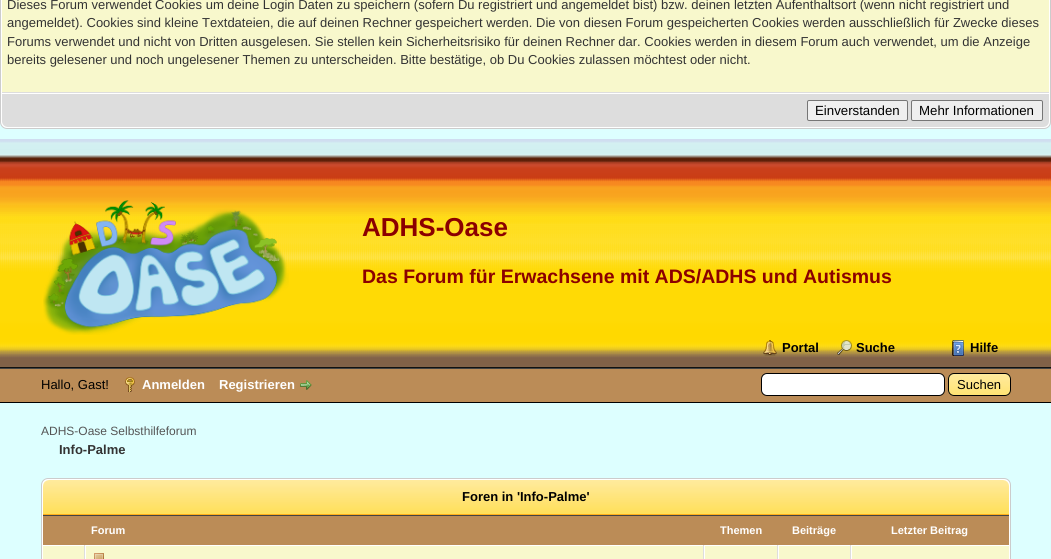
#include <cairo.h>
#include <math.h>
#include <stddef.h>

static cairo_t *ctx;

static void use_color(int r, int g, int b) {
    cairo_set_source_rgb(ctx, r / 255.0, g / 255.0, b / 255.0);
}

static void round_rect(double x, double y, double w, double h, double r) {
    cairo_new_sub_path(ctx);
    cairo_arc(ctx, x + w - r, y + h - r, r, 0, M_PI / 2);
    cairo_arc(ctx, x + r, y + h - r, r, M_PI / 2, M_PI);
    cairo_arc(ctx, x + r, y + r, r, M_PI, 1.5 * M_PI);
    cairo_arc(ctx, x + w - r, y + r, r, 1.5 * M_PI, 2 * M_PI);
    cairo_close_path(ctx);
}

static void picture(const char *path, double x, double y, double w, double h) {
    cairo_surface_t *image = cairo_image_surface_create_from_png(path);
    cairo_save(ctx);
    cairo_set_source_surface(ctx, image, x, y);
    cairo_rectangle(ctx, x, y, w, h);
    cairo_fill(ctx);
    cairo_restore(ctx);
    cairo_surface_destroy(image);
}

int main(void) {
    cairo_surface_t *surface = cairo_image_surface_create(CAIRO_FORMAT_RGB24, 1051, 559);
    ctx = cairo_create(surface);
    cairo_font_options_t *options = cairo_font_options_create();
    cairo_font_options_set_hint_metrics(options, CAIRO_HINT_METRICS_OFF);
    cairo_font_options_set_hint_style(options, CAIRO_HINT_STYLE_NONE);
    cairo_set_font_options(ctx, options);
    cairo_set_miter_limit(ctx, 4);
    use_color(221, 255, 255);
    cairo_paint(ctx);
    use_color(255, 255, 255);
    round_rect(0.5, -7.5, 1050, 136, 6.5);
    cairo_fill_preserve(ctx);
    use_color(204, 204, 204);
    cairo_set_line_width(ctx, 1);
    cairo_stroke(ctx);
    use_color(248, 248, 204);
    cairo_rectangle(ctx, 2, 0, 1047, 92);
    cairo_fill(ctx);
    use_color(221, 221, 221);
    cairo_rectangle(ctx, 2, 92, 1047, 1);
    cairo_fill(ctx);
    cairo_select_font_face(ctx, "Liberation Sans", CAIRO_FONT_SLANT_NORMAL, CAIRO_FONT_WEIGHT_NORMAL);
    cairo_set_font_size(ctx, 13);
    use_color(51, 51, 51);
    cairo_move_to(ctx, 7, 9);
    cairo_show_text(ctx, "Dieses Forum verwendet Cookies um deine Login Daten zu speichern (sofern Du registriert und angemeldet bist) bzw. deinen letzten Aufenthaltsort (wenn nicht registriert und");
    cairo_move_to(ctx, 7, 27);
    cairo_show_text(ctx, "angemeldet). Cookies sind kleine Textdateien, die auf deinen Rechner gespeichert werden. Die von diesen Forum gespeicherten Cookies werden ausschließlich für Zwecke dieses");
    cairo_move_to(ctx, 7, 46);
    cairo_show_text(ctx, "Forums verwendet und nicht von Dritten ausgelesen. Sie stellen kein Sicherheitsrisiko für deinen Rechner dar. Cookies werden in diesem Forum auch verwendet, um die Anzeige");
    cairo_move_to(ctx, 7, 64);
    cairo_show_text(ctx, "bereits gelesener und noch ungelesener Themen zu unterscheiden. Bitte bestätige, ob Du Cookies zulassen möchtest oder nicht.");
    use_color(221, 221, 221);
    cairo_new_path(ctx);
    cairo_move_to(ctx, 2, 93);
    cairo_line_to(ctx, 1049, 93);
    cairo_line_to(ctx, 1049, 121);
    cairo_curve_to(ctx, 1049, 124.5, 1046.5, 127, 1043, 127);
    cairo_line_to(ctx, 8, 127);
    cairo_curve_to(ctx, 4.5, 127, 2, 124.5, 2, 121);
    cairo_close_path(ctx);
    cairo_fill(ctx);
    use_color(255, 255, 255);
    cairo_rectangle(ctx, 2, 93, 1047, 1);
    cairo_fill(ctx);
    use_color(239, 239, 239);
    round_rect(807.5, 100.5, 100, 20, 1.5);
    cairo_fill_preserve(ctx);
    use_color(118, 118, 118);
    cairo_stroke(ctx);
    cairo_set_font_size(ctx, 13.25);
    use_color(0, 0, 0);
    cairo_move_to(ctx, 815, 115);
    cairo_show_text(ctx, "Einverstanden");
    use_color(239, 239, 239);
    round_rect(911.5, 100.5, 131, 20, 1.5);
    cairo_fill_preserve(ctx);
    use_color(118, 118, 118);
    cairo_stroke(ctx);
    use_color(0, 0, 0);
    cairo_move_to(ctx, 919, 115);
    cairo_show_text(ctx, "Mehr Informationen");
    picture("img1.png", 0, 139, 1051, 228);
    use_color(17, 17, 17);
    cairo_rectangle(ctx, 0, 367, 1051, 1);
    cairo_fill(ctx);
    picture("img2.png", 43, 200, 246, 135);
    cairo_select_font_face(ctx, "Liberation Sans", CAIRO_FONT_SLANT_NORMAL, CAIRO_FONT_WEIGHT_BOLD);
    cairo_set_font_size(ctx, 26);
    use_color(139, 0, 0);
    cairo_move_to(ctx, 362, 236);
    cairo_show_text(ctx, "ADHS-Oase");
    cairo_set_font_size(ctx, 19.5);
    cairo_move_to(ctx, 362, 283);
    cairo_show_text(ctx, "Das Forum für Erwachsene mit ADS/ADHS und Autismus");
    picture("img3.png", 763, 340, 14, 16);
    cairo_set_font_size(ctx, 13);
    use_color(0, 0, 0);
    cairo_move_to(ctx, 782, 352);
    cairo_show_text(ctx, "Portal");
    picture("img4.png", 837, 340, 15, 15);
    cairo_move_to(ctx, 856, 352);
    cairo_show_text(ctx, "Suche");
    picture("img5.png", 952, 340, 12, 16);
    cairo_move_to(ctx, 970, 352);
    cairo_show_text(ctx, "Hilfe");
    use_color(187, 140, 87);
    cairo_rectangle(ctx, 0, 369, 1051, 33);
    cairo_fill(ctx);
    use_color(68, 68, 68);
    cairo_rectangle(ctx, 0, 368, 1051, 1);
    cairo_fill(ctx);
    use_color(0, 0, 0);
    cairo_rectangle(ctx, 0, 402, 1051, 1);
    cairo_fill(ctx);
    cairo_select_font_face(ctx, "Liberation Sans", CAIRO_FONT_SLANT_NORMAL, CAIRO_FONT_WEIGHT_NORMAL);
    cairo_move_to(ctx, 41, 389);
    cairo_show_text(ctx, "Hallo, Gast!");
    picture("img6.png", 125, 377, 10, 15);
    cairo_select_font_face(ctx, "Liberation Sans", CAIRO_FONT_SLANT_NORMAL, CAIRO_FONT_WEIGHT_BOLD);
    use_color(255, 255, 255);
    cairo_move_to(ctx, 142, 389);
    cairo_show_text(ctx, "Anmelden");
    cairo_move_to(ctx, 219, 389);
    cairo_show_text(ctx, "Registrieren");
    picture("img7.png", 300, 380, 12, 10);
    round_rect(761.5, 373.5, 183, 22, 5.5);
    cairo_fill_preserve(ctx);
    use_color(0, 0, 0);
    cairo_stroke(ctx);
    picture("img8.png", 948, 374, 63, 22);
    round_rect(948.5, 373.5, 62, 22, 5.5);
    cairo_stroke(ctx);
    cairo_select_font_face(ctx, "Liberation Sans", CAIRO_FONT_SLANT_NORMAL, CAIRO_FONT_WEIGHT_NORMAL);
    cairo_move_to(ctx, 957, 389);
    cairo_show_text(ctx, "Suchen");
    cairo_set_font_size(ctx, 12);
    use_color(85, 85, 85);
    cairo_move_to(ctx, 41, 435);
    cairo_show_text(ctx, "ADHS-Oase Selbsthilfeforum");
    cairo_select_font_face(ctx, "Liberation Sans", CAIRO_FONT_SLANT_NORMAL, CAIRO_FONT_WEIGHT_BOLD);
    cairo_set_font_size(ctx, 13);
    use_color(51, 51, 51);
    cairo_move_to(ctx, 59, 454);
    cairo_show_text(ctx, "Info-Palme");
    use_color(255, 255, 255);
    round_rect(41.5, 478.5, 969, 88, 6.5);
    cairo_fill_preserve(ctx);
    use_color(204, 204, 204);
    cairo_stroke(ctx);
    picture("img9.png", 43, 480, 966, 34);
    use_color(255, 175, 26);
    cairo_rectangle(ctx, 43, 514, 966, 1);
    cairo_fill(ctx);
    use_color(0, 0, 0);
    cairo_move_to(ctx, 462, 501);
    cairo_show_text(ctx, "Foren in 'Info-Palme'");
    use_color(187, 140, 87);
    cairo_rectangle(ctx, 43, 516, 966, 29);
    cairo_fill(ctx);
    use_color(68, 68, 68);
    cairo_rectangle(ctx, 43, 515, 966, 1);
    cairo_fill(ctx);
    cairo_set_font_size(ctx, 11);
    use_color(255, 255, 255);
    cairo_move_to(ctx, 91, 534);
    cairo_show_text(ctx, "Forum");
    cairo_move_to(ctx, 720, 534);
    cairo_show_text(ctx, "Themen");
    cairo_move_to(ctx, 792, 534);
    cairo_show_text(ctx, "Beiträge");
    cairo_move_to(ctx, 891, 534);
    cairo_show_text(ctx, "Letzter Beitrag");
    use_color(248, 248, 204);
    cairo_rectangle(ctx, 43, 546, 41, 13);
    cairo_fill(ctx);
    use_color(221, 221, 221);
    cairo_rectangle(ctx, 84, 545, 1, 14);
    cairo_fill(ctx);
    use_color(248, 248, 204);
    cairo_rectangle(ctx, 86, 546, 617, 13);
    cairo_fill(ctx);
    use_color(221, 221, 221);
    cairo_rectangle(ctx, 703, 545, 1, 14);
    cairo_fill(ctx);
    picture("img10.png", 94, 553, 10, 6);
    use_color(248, 248, 204);
    cairo_rectangle(ctx, 705, 546, 72, 13);
    cairo_fill(ctx);
    use_color(221, 221, 221);
    cairo_rectangle(ctx, 777, 545, 1, 14);
    cairo_fill(ctx);
    use_color(248, 248, 204);
    cairo_rectangle(ctx, 779, 546, 71, 13);
    cairo_fill(ctx);
    use_color(221, 221, 221);
    cairo_rectangle(ctx, 850, 545, 1, 14);
    cairo_fill(ctx);
    use_color(248, 248, 204);
    cairo_rectangle(ctx, 852, 546, 157, 13);
    cairo_fill(ctx);
    cairo_surface_write_to_png(surface, "result.png");
    cairo_font_options_destroy(options);
    cairo_destroy(ctx);
    cairo_surface_destroy(surface);
    return 0;
}
